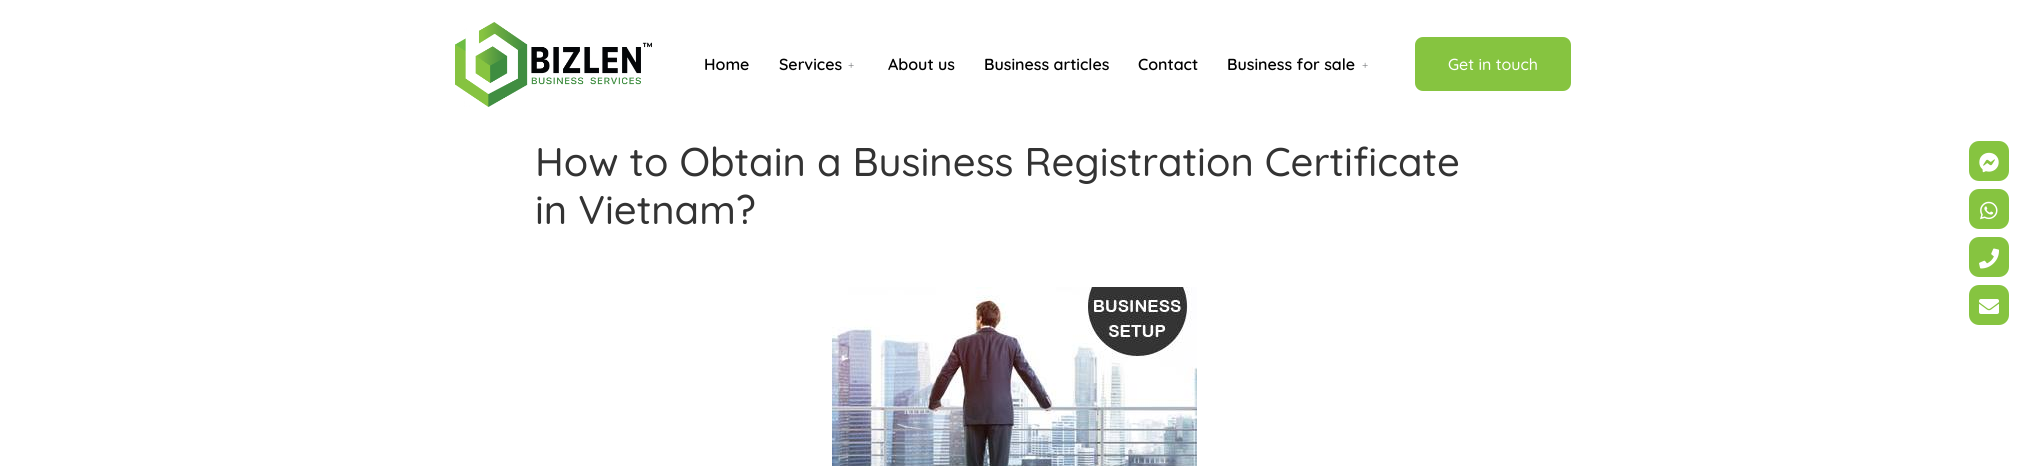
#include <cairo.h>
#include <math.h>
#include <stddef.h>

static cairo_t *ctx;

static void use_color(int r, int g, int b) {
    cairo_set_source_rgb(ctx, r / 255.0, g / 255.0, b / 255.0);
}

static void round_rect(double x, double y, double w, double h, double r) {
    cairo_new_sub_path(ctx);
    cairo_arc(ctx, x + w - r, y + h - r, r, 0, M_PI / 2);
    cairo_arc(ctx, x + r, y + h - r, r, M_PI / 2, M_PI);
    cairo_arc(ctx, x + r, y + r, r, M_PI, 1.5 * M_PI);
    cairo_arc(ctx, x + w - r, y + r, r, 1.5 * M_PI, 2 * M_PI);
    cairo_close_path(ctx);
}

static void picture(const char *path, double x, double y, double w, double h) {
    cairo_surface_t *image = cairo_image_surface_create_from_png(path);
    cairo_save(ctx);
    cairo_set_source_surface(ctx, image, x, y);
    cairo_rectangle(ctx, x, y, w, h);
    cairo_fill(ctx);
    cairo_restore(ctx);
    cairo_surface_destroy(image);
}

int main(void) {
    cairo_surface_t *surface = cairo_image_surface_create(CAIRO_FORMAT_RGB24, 2029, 466);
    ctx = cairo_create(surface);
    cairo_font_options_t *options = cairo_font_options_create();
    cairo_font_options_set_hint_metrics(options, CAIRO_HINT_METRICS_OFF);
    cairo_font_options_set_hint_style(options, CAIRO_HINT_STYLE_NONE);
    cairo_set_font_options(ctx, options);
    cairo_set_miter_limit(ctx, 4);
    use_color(255, 255, 255);
    cairo_paint(ctx);
    picture("img1.png", 455, 22, 197, 85);
    cairo_select_font_face(ctx, "Quicksand SemiBold", CAIRO_FONT_SLANT_NORMAL, CAIRO_FONT_WEIGHT_NORMAL);
    cairo_set_font_size(ctx, 16);
    use_color(0, 0, 0);
    cairo_move_to(ctx, 704, 70);
    cairo_show_text(ctx, "Home");
    cairo_move_to(ctx, 779, 70);
    cairo_show_text(ctx, "Services");
    cairo_select_font_face(ctx, "Liberation Serif", CAIRO_FONT_SLANT_NORMAL, CAIRO_FONT_WEIGHT_NORMAL);
    cairo_set_font_size(ctx, 11);
    use_color(107, 109, 112);
    cairo_move_to(ctx, 848, 69);
    cairo_show_text(ctx, "+");
    cairo_select_font_face(ctx, "Quicksand SemiBold", CAIRO_FONT_SLANT_NORMAL, CAIRO_FONT_WEIGHT_NORMAL);
    cairo_set_font_size(ctx, 16);
    use_color(0, 0, 0);
    cairo_move_to(ctx, 888, 70);
    cairo_show_text(ctx, "About us");
    cairo_move_to(ctx, 984, 70);
    cairo_show_text(ctx, "Business articles");
    cairo_move_to(ctx, 1138, 70);
    cairo_show_text(ctx, "Contact");
    cairo_move_to(ctx, 1227, 70);
    cairo_show_text(ctx, "Business for sale");
    cairo_select_font_face(ctx, "Liberation Serif", CAIRO_FONT_SLANT_NORMAL, CAIRO_FONT_WEIGHT_NORMAL);
    cairo_set_font_size(ctx, 11);
    use_color(107, 109, 112);
    cairo_move_to(ctx, 1362, 69);
    cairo_show_text(ctx, "+");
    use_color(134, 196, 64);
    round_rect(1415, 37, 156, 54, 8);
    cairo_fill(ctx);
    cairo_select_font_face(ctx, "Quicksand Medium", CAIRO_FONT_SLANT_NORMAL, CAIRO_FONT_WEIGHT_NORMAL);
    cairo_set_font_size(ctx, 16);
    use_color(255, 255, 255);
    cairo_move_to(ctx, 1448, 70);
    cairo_show_text(ctx, "Get in touch");
    cairo_set_font_size(ctx, 40);
    use_color(51, 51, 51);
    cairo_move_to(ctx, 535, 176);
    cairo_show_text(ctx, "How to Obtain a Business Registration Certificate");
    cairo_move_to(ctx, 535, 224);
    cairo_show_text(ctx, "in Vietnam?");
    picture("img2.png", 832, 287, 365, 179);
    use_color(134, 196, 64);
    round_rect(1969, 141, 40, 40, 10);
    cairo_fill(ctx);
    picture("img3.png", 1979, 152, 20, 21);
    round_rect(1969, 189, 40, 40, 10);
    cairo_fill(ctx);
    picture("img4.png", 1980, 201, 18, 19);
    round_rect(1969, 237, 40, 40, 10);
    cairo_fill(ctx);
    picture("img5.png", 1979, 248, 20, 21);
    round_rect(1969, 285, 40, 40, 10);
    cairo_fill(ctx);
    picture("img6.png", 1979, 299, 20, 15);
    cairo_surface_write_to_png(surface, "result.png");
    cairo_font_options_destroy(options);
    cairo_destroy(ctx);
    cairo_surface_destroy(surface);
    return 0;
}
